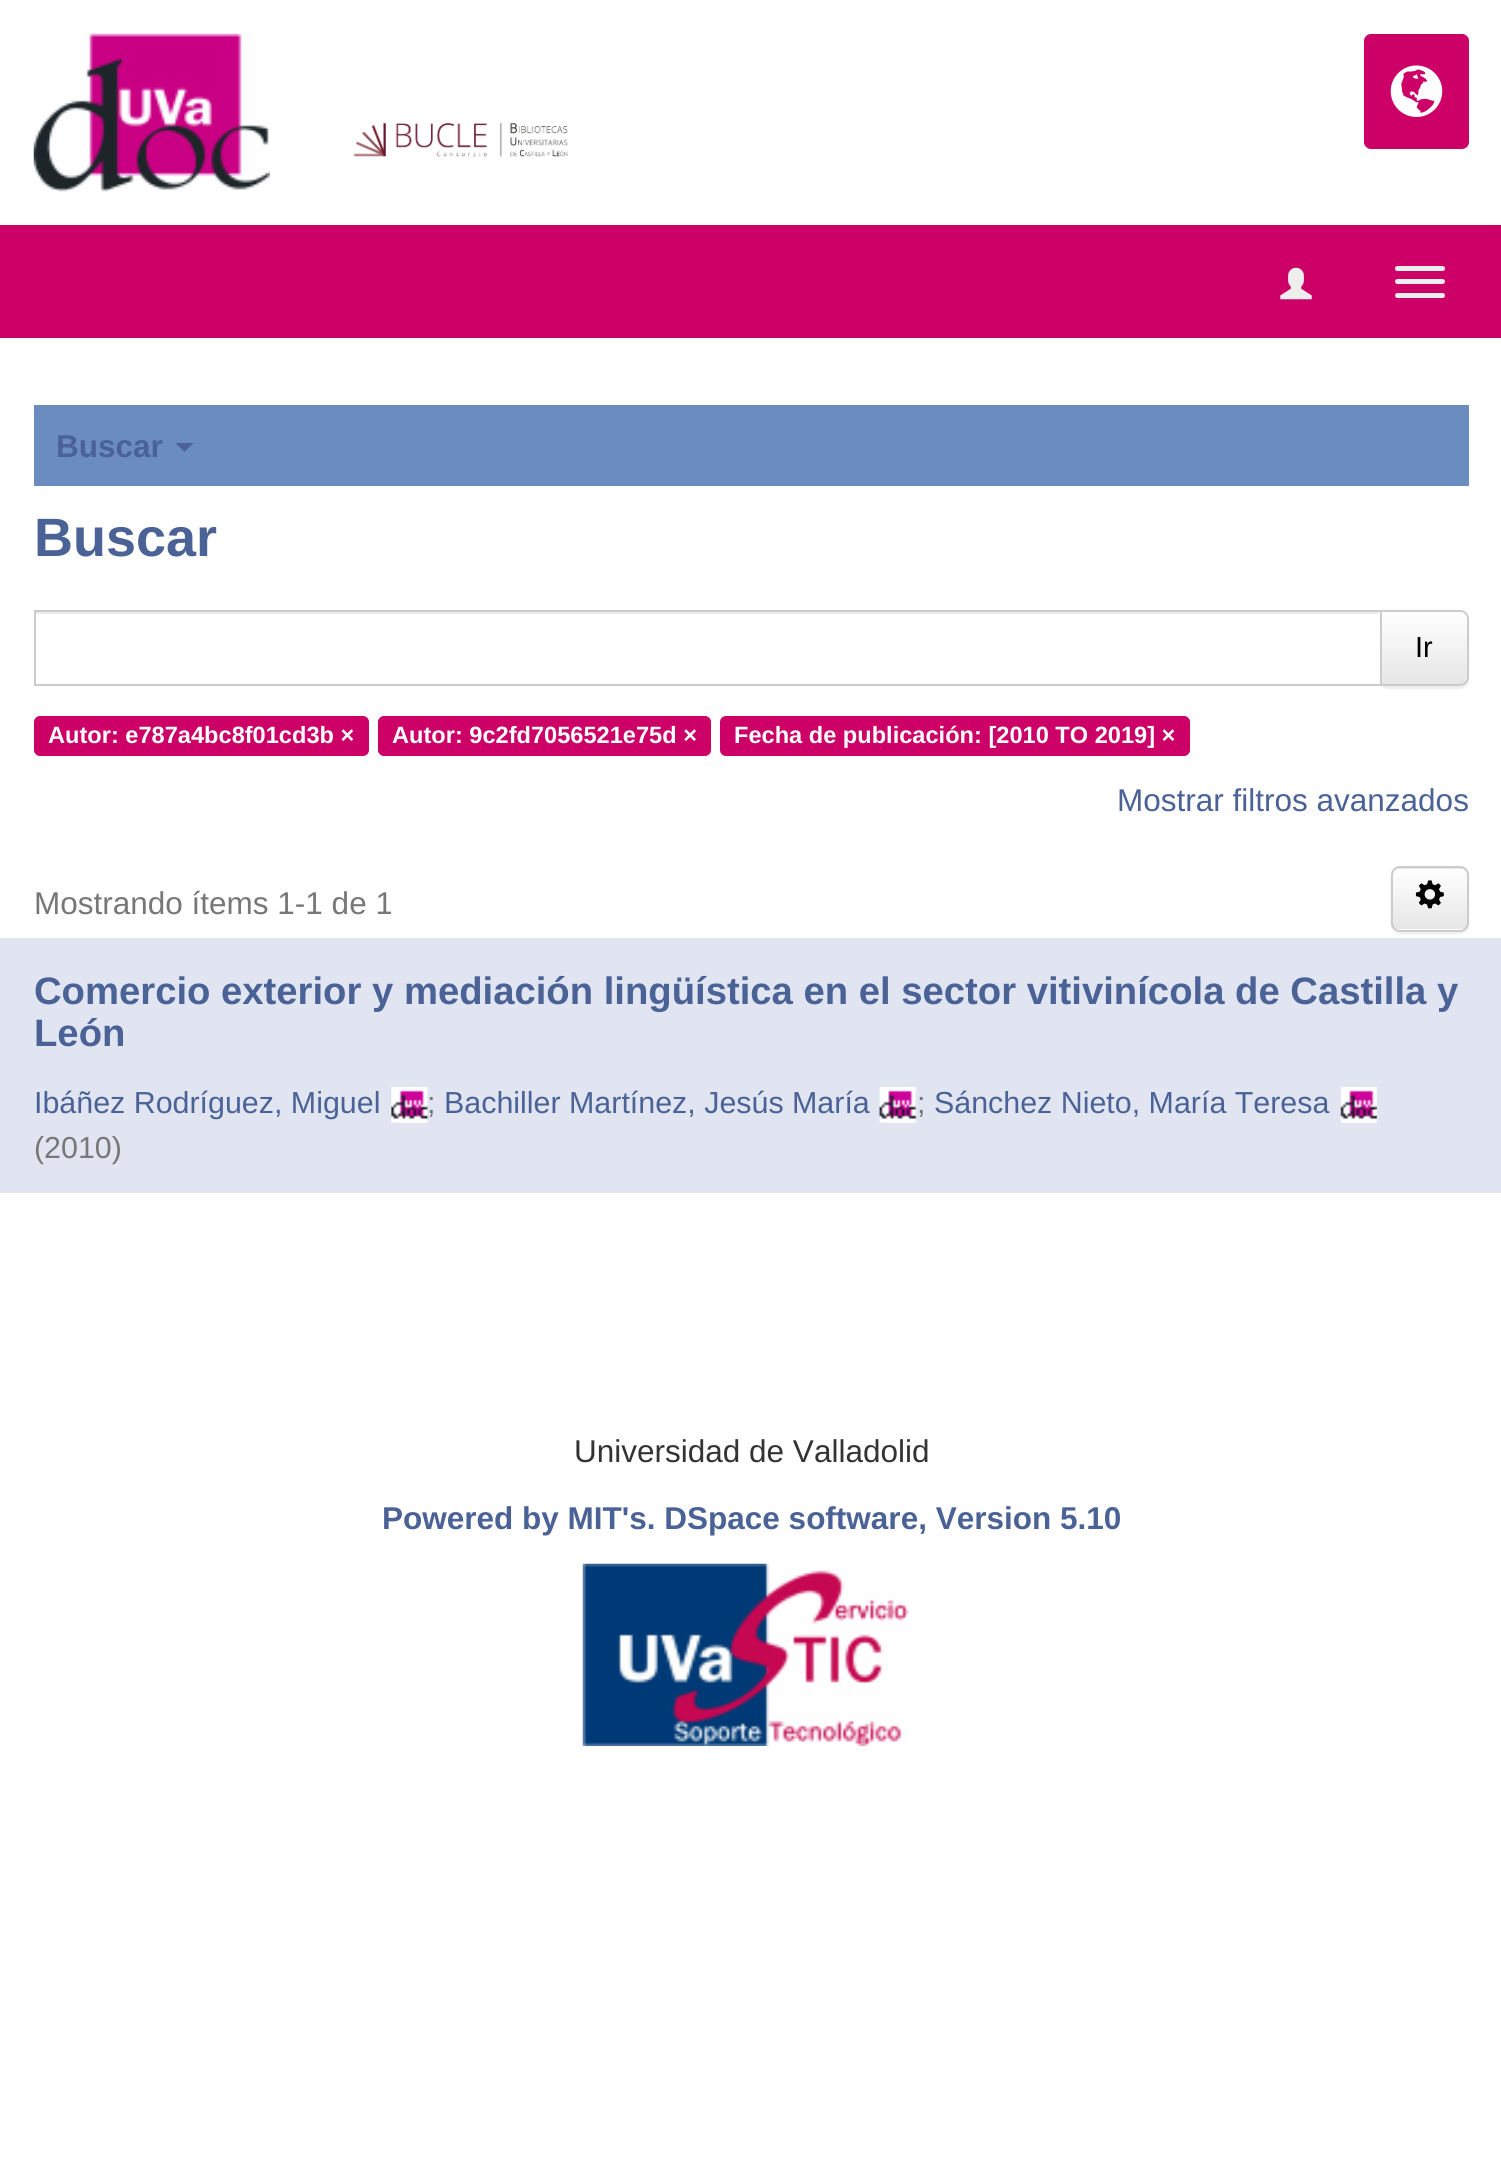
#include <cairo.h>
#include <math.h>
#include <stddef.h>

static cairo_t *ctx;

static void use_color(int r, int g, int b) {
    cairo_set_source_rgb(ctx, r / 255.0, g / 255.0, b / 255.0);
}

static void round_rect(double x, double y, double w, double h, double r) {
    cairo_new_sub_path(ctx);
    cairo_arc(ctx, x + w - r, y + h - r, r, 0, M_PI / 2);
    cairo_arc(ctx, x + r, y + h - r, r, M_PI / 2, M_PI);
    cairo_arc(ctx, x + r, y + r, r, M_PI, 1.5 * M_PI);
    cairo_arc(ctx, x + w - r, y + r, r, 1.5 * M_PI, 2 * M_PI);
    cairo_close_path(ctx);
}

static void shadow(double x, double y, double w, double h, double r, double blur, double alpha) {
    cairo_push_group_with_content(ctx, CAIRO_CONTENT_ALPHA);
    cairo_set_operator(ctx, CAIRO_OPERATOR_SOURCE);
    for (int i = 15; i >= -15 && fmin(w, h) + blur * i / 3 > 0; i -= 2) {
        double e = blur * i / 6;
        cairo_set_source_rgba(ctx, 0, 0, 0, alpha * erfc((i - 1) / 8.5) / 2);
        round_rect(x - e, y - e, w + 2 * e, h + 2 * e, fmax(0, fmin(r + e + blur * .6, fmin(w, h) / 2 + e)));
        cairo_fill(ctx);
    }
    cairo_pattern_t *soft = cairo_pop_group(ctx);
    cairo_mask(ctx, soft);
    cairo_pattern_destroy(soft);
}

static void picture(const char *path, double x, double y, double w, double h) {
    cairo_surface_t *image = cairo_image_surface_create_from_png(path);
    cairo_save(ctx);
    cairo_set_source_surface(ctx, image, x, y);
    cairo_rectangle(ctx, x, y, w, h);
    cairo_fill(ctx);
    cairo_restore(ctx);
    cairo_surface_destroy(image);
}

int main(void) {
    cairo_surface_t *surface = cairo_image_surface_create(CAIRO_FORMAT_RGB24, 1501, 2167);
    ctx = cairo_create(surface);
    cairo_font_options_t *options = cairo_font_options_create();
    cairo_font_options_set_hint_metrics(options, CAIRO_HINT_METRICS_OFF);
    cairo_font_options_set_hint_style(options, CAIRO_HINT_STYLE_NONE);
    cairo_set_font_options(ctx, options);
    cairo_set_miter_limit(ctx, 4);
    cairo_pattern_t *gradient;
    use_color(255, 255, 255);
    cairo_paint(ctx);
    picture("img1.png", 33, 33, 237, 159);
    picture("img2.png", 353, 123, 215, 34);
    use_color(204, 0, 102);
    round_rect(1364, 34, 105, 115, 7);
    cairo_fill(ctx);
    picture("img3.png", 1390, 65, 53, 52);
    cairo_rectangle(ctx, 0, 225, 1501, 113);
    cairo_fill(ctx);
    picture("img4.png", 1280, 267, 32, 33);
    use_color(238, 238, 238);
    round_rect(1395, 266, 50, 5, 2.5);
    cairo_fill(ctx);
    round_rect(1395, 279, 50, 5, 2.5);
    cairo_fill(ctx);
    round_rect(1395, 293, 50, 5, 2.5);
    cairo_fill(ctx);
    use_color(106, 140, 190);
    cairo_rectangle(ctx, 34, 405, 1435, 81);
    cairo_fill(ctx);
    cairo_select_font_face(ctx, "Liberation Sans", CAIRO_FONT_SLANT_NORMAL, CAIRO_FONT_WEIGHT_BOLD);
    cairo_set_font_size(ctx, 31.5);
    use_color(75, 98, 150);
    cairo_move_to(ctx, 56, 457);
    cairo_show_text(ctx, "Buscar");
    cairo_new_path(ctx);
    cairo_move_to(ctx, 175.5, 443);
    cairo_line_to(ctx, 193.5, 443);
    cairo_line_to(ctx, 184.5, 452);
    cairo_close_path(ctx);
    cairo_fill(ctx);
    cairo_set_font_size(ctx, 54);
    cairo_move_to(ctx, 34, 556);
    cairo_show_text(ctx, "Buscar");
    use_color(0, 0, 0);
    shadow(1379, 612, 90, 77, 9, 1, 0.07);
    cairo_save(ctx);
    cairo_new_path(ctx);
    cairo_move_to(ctx, 1379, 610);
    cairo_line_to(ctx, 1460, 610);
    cairo_curve_to(ctx, 1465, 610, 1469, 614, 1469, 619);
    cairo_line_to(ctx, 1469, 677);
    cairo_curve_to(ctx, 1469, 682, 1465, 686, 1460, 686);
    cairo_line_to(ctx, 1379, 686);
    cairo_close_path(ctx);
    cairo_clip(ctx);
    gradient = cairo_pattern_create_linear(1424, 612, 1424, 684);
    cairo_pattern_add_color_stop_rgba(gradient, 0, 1, 1, 1, 1);
    cairo_pattern_add_color_stop_rgba(gradient, 1, 0.902, 0.902, 0.902, 1);
    cairo_set_source(ctx, gradient);
    cairo_pattern_destroy(gradient);
    cairo_rectangle(ctx, 1382, 612, 87, 72);
    cairo_fill(ctx);
    cairo_restore(ctx);
    cairo_new_path(ctx);
    cairo_move_to(ctx, 1380, 611);
    cairo_line_to(ctx, 1460, 611);
    cairo_curve_to(ctx, 1464.5, 611, 1468, 614.5, 1468, 619);
    cairo_line_to(ctx, 1468, 677);
    cairo_curve_to(ctx, 1468, 681.5, 1464.5, 685, 1460, 685);
    cairo_line_to(ctx, 1380, 685);
    cairo_close_path(ctx);
    use_color(204, 204, 204);
    cairo_stroke(ctx);
    use_color(255, 255, 255);
    cairo_rectangle(ctx, 1378, 612, 2, 72);
    cairo_fill(ctx);
    use_color(236, 236, 236);
    cairo_rectangle(ctx, 36, 612, 1343, 2);
    cairo_fill(ctx);
    cairo_rectangle(ctx, 35, 611, 1346, 74);
    use_color(204, 204, 204);
    cairo_stroke(ctx);
    cairo_select_font_face(ctx, "Liberation Sans", CAIRO_FONT_SLANT_NORMAL, CAIRO_FONT_WEIGHT_NORMAL);
    cairo_set_font_size(ctx, 29);
    use_color(0, 0, 0);
    cairo_move_to(ctx, 1415, 657);
    cairo_show_text(ctx, "Ir");
    use_color(204, 0, 102);
    round_rect(34, 716, 335, 40, 6);
    cairo_fill(ctx);
    cairo_select_font_face(ctx, "Liberation Sans", CAIRO_FONT_SLANT_NORMAL, CAIRO_FONT_WEIGHT_BOLD);
    cairo_set_font_size(ctx, 23.6);
    use_color(255, 255, 255);
    cairo_move_to(ctx, 48, 743);
    cairo_show_text(ctx, "Autor: e787a4bc8f01cd3b ×");
    use_color(204, 0, 102);
    round_rect(378, 716, 333, 40, 6);
    cairo_fill(ctx);
    use_color(255, 255, 255);
    cairo_move_to(ctx, 392, 743);
    cairo_show_text(ctx, "Autor: 9c2fd7056521e75d ×");
    use_color(204, 0, 102);
    round_rect(720, 716, 470, 40, 6);
    cairo_fill(ctx);
    use_color(255, 255, 255);
    cairo_move_to(ctx, 734, 743);
    cairo_show_text(ctx, "Fecha de publicación: [2010 TO 2019] ×");
    cairo_select_font_face(ctx, "Liberation Sans", CAIRO_FONT_SLANT_NORMAL, CAIRO_FONT_WEIGHT_NORMAL);
    cairo_set_font_size(ctx, 31.5);
    use_color(75, 98, 150);
    cairo_move_to(ctx, 1117, 811);
    cairo_show_text(ctx, "Mostrar filtros avanzados");
    use_color(119, 119, 119);
    cairo_move_to(ctx, 34, 914);
    cairo_show_text(ctx, "Mostrando ítems 1-1 de 1");
    use_color(0, 0, 0);
    shadow(1391, 869, 78, 65, 9, 1, 0.07);
    cairo_save(ctx);
    round_rect(1391, 866, 78, 66, 9);
    cairo_clip(ctx);
    gradient = cairo_pattern_create_linear(1430, 808, 1430, 869);
    cairo_pattern_add_color_stop_rgba(gradient, 0, 1, 1, 1, 1);
    cairo_pattern_add_color_stop_rgba(gradient, 1, 0.902, 0.902, 0.902, 1);
    cairo_set_source(ctx, gradient);
    cairo_pattern_destroy(gradient);
    cairo_rectangle(ctx, 1391, 866, 78, 3);
    cairo_fill(ctx);
    gradient = cairo_pattern_create_linear(1430, 869, 1430, 929);
    cairo_pattern_add_color_stop_rgba(gradient, 0, 1, 1, 1, 1);
    cairo_pattern_add_color_stop_rgba(gradient, 1, 0.902, 0.902, 0.902, 1);
    cairo_set_source(ctx, gradient);
    cairo_pattern_destroy(gradient);
    cairo_rectangle(ctx, 1391, 869, 78, 60);
    cairo_fill(ctx);
    gradient = cairo_pattern_create_linear(1430, 929, 1430, 990);
    cairo_pattern_add_color_stop_rgba(gradient, 0, 1, 1, 1, 1);
    cairo_pattern_add_color_stop_rgba(gradient, 1, 0.902, 0.902, 0.902, 1);
    cairo_set_source(ctx, gradient);
    cairo_pattern_destroy(gradient);
    cairo_rectangle(ctx, 1391, 929, 78, 3);
    cairo_fill(ctx);
    cairo_restore(ctx);
    use_color(255, 255, 255);
    cairo_new_path(ctx);
    cairo_move_to(ctx, 1400, 871);
    cairo_line_to(ctx, 1460, 871);
    cairo_curve_to(ctx, 1464, 871, 1467, 874, 1467, 878);
    cairo_curve_to(ctx, 1467, 867, 1459, 869, 1450, 869);
    cairo_line_to(ctx, 1410, 869);
    cairo_curve_to(ctx, 1401, 869, 1393, 867, 1393, 878);
    cairo_curve_to(ctx, 1393, 874, 1396, 871, 1400, 871);
    cairo_close_path(ctx);
    cairo_fill(ctx);
    round_rect(1392, 867, 76, 64, 8);
    use_color(204, 204, 204);
    cairo_stroke(ctx);
    picture("img5.png", 1415, 880, 29, 29);
    use_color(224, 229, 241);
    cairo_rectangle(ctx, 0, 938, 1501, 255);
    cairo_fill(ctx);
    cairo_select_font_face(ctx, "Liberation Sans", CAIRO_FONT_SLANT_NORMAL, CAIRO_FONT_WEIGHT_BOLD);
    cairo_set_font_size(ctx, 38.25);
    use_color(75, 98, 150);
    cairo_move_to(ctx, 34, 1004);
    cairo_show_text(ctx, "Comercio exterior y mediación lingüística en el sector vitivinícola de Castilla y");
    cairo_move_to(ctx, 34, 1046);
    cairo_show_text(ctx, "León");
    cairo_select_font_face(ctx, "Liberation Sans", CAIRO_FONT_SLANT_NORMAL, CAIRO_FONT_WEIGHT_NORMAL);
    cairo_set_font_size(ctx, 30.4);
    cairo_move_to(ctx, 34, 1113);
    cairo_show_text(ctx, "Ibáñez Rodríguez, Miguel");
    picture("img6.png", 391, 1087, 38, 36);
    use_color(119, 119, 119);
    cairo_move_to(ctx, 427, 1113);
    cairo_show_text(ctx, ";");
    use_color(75, 98, 150);
    cairo_move_to(ctx, 444, 1113);
    cairo_show_text(ctx, "Bachiller Martínez, Jesús María");
    picture("img7.png", 879, 1087, 38, 36);
    use_color(119, 119, 119);
    cairo_move_to(ctx, 917, 1113);
    cairo_show_text(ctx, ";");
    use_color(75, 98, 150);
    cairo_move_to(ctx, 934, 1113);
    cairo_show_text(ctx, "Sánchez Nieto, María Teresa");
    picture("img8.png", 1340, 1087, 37, 36);
    use_color(119, 119, 119);
    cairo_move_to(ctx, 34, 1158);
    cairo_show_text(ctx, "(2010)");
    cairo_set_font_size(ctx, 31.5);
    use_color(51, 51, 51);
    cairo_move_to(ctx, 574, 1462);
    cairo_show_text(ctx, "Universidad de Valladolid");
    cairo_select_font_face(ctx, "Liberation Sans", CAIRO_FONT_SLANT_NORMAL, CAIRO_FONT_WEIGHT_BOLD);
    use_color(75, 98, 150);
    cairo_move_to(ctx, 382, 1529);
    cairo_show_text(ctx, "Powered by MIT's. DSpace software, Version 5.10");
    picture("img9.png", 582, 1563, 327, 183);
    cairo_surface_write_to_png(surface, "result.png");
    cairo_font_options_destroy(options);
    cairo_destroy(ctx);
    cairo_surface_destroy(surface);
    return 0;
}
